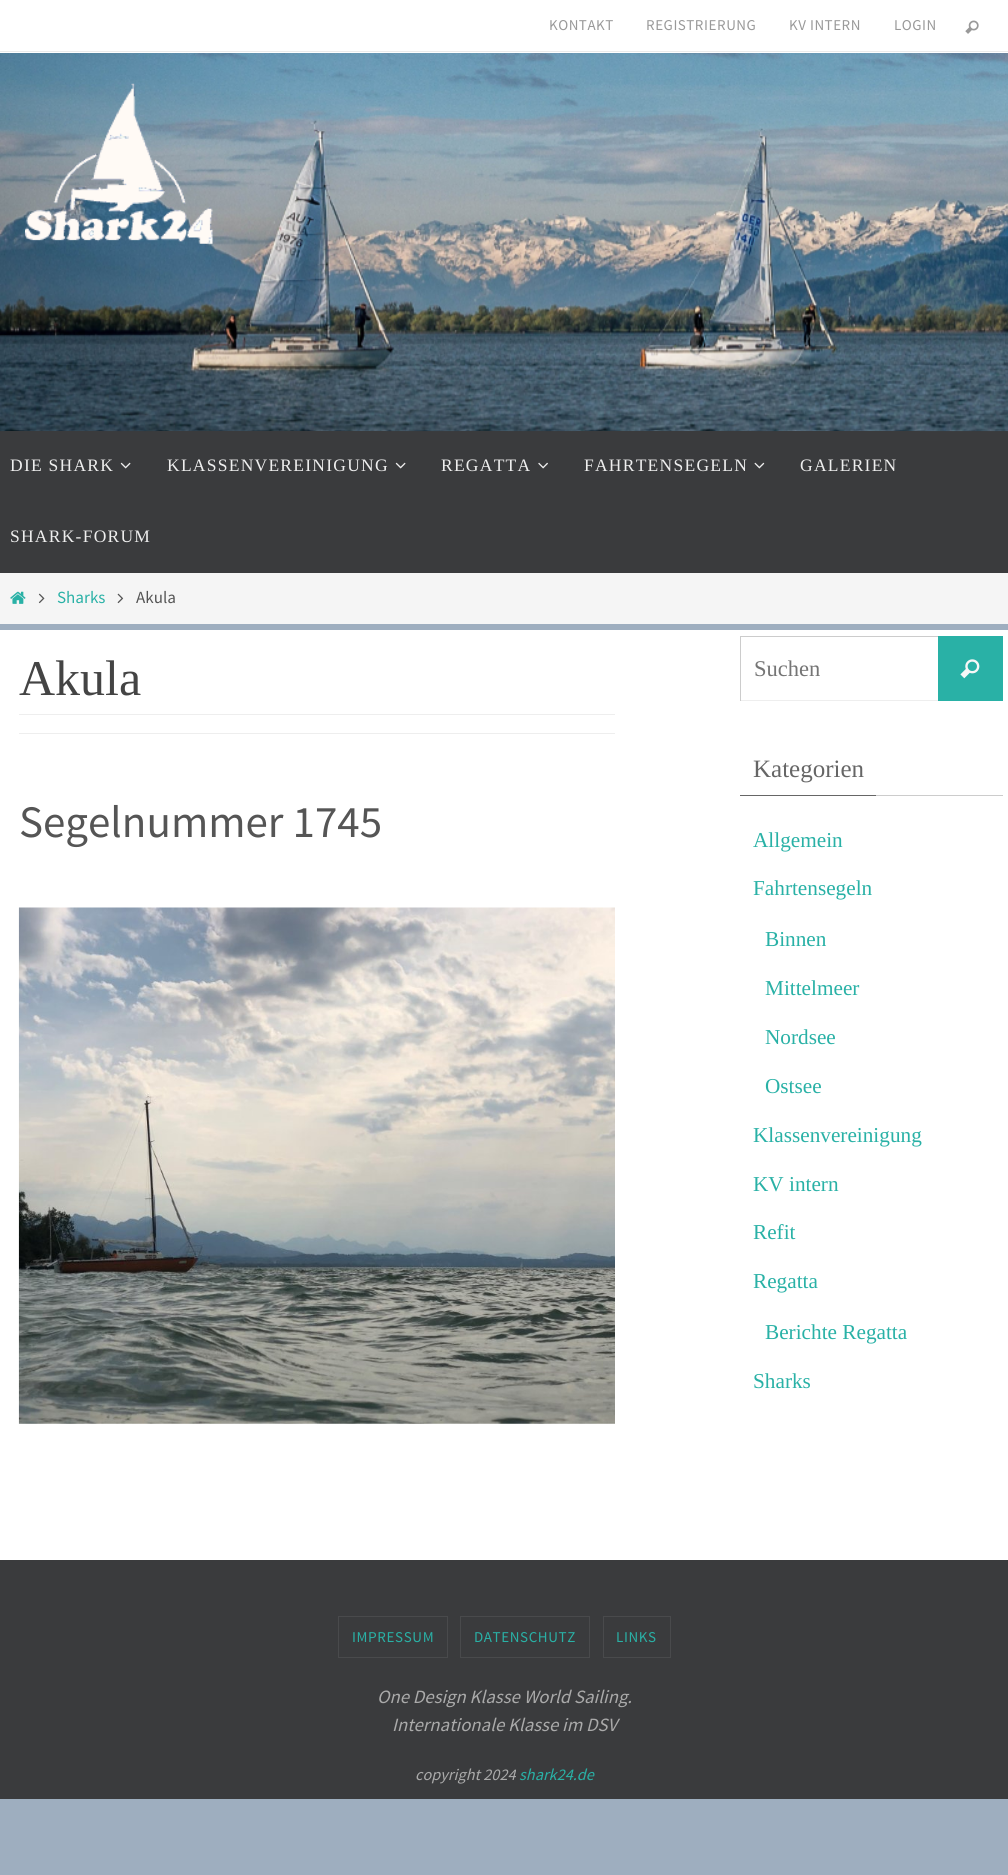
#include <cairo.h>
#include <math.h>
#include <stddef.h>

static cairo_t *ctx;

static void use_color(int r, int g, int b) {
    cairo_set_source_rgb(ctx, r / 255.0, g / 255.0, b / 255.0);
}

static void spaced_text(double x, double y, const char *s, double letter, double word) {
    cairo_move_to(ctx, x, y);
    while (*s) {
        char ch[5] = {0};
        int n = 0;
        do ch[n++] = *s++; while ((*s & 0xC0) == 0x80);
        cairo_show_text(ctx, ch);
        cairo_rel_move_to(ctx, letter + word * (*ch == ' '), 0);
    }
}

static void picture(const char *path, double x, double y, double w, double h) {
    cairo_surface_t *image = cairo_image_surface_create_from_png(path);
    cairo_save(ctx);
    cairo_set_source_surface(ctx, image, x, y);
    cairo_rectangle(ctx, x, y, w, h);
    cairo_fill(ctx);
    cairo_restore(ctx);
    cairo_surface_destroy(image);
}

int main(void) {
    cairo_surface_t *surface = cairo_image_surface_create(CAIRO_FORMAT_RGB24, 1008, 1875);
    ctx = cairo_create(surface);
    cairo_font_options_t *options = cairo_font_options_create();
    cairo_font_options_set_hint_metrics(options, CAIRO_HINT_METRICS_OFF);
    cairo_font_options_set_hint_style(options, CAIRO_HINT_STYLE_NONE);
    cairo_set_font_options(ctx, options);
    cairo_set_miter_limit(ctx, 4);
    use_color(158, 174, 191);
    cairo_paint(ctx);
    use_color(255, 255, 255);
    cairo_rectangle(ctx, 0, 0, 1008, 53);
    cairo_fill(ctx);
    use_color(235, 235, 235);
    cairo_rectangle(ctx, 0, 51, 1008, 1);
    cairo_fill(ctx);
    cairo_select_font_face(ctx, "Source Sans Pro", CAIRO_FONT_SLANT_NORMAL, CAIRO_FONT_WEIGHT_NORMAL);
    cairo_set_font_size(ctx, 15);
    use_color(153, 153, 153);
    spaced_text(549, 30, "KONTAKT", 0.5, 0);
    spaced_text(646, 30, "REGISTRIERUNG", 0.5, 0);
    spaced_text(789, 30, "KV INTERN", 0.5, 0);
    spaced_text(894, 30, "LOGIN", 0.5, 0);
    picture("img1.png", 965, 20, 14, 14);
    use_color(58, 59, 61);
    cairo_rectangle(ctx, 0, 431, 1008, 142);
    cairo_fill(ctx);
    picture("img2.png", 0, 53, 1008, 379);
    picture("img3.png", 25, 83, 188, 161);
    cairo_rectangle(ctx, 5, 431, 97, 1);
    cairo_fill(ctx);
    cairo_select_font_face(ctx, "Liberation Serif", CAIRO_FONT_SLANT_NORMAL, CAIRO_FONT_WEIGHT_NORMAL);
    cairo_set_font_size(ctx, 17.5);
    use_color(238, 238, 238);
    spaced_text(10, 471, "DIE SHARK", 1.25, 0);
    picture("img4.png", 120, 462, 11, 7);
    use_color(58, 59, 61);
    cairo_rectangle(ctx, 157, 431, 229, 1);
    cairo_fill(ctx);
    use_color(238, 238, 238);
    spaced_text(167, 471, "KLASSENVEREINIGUNG", 1.25, 0);
    picture("img4.png", 395, 462, 11, 7);
    use_color(58, 59, 61);
    cairo_rectangle(ctx, 461, 431, 47, 1);
    cairo_fill(ctx);
    use_color(238, 238, 238);
    spaced_text(441, 471, "REGATTA", 1.25, 0);
    picture("img5.png", 538, 462, 10, 7);
    use_color(58, 59, 61);
    cairo_rectangle(ctx, 576, 431, 179, 1);
    cairo_fill(ctx);
    use_color(238, 238, 238);
    spaced_text(584, 471, "FAHRTENSEGELN", 1.25, 0);
    picture("img6.png", 754, 462, 11, 7);
    use_color(58, 59, 61);
    cairo_rectangle(ctx, 779, 431, 141, 1);
    cairo_fill(ctx);
    use_color(238, 238, 238);
    spaced_text(800, 471, "GALERIEN", 1.25, 0);
    spaced_text(10, 542, "SHARK-FORUM", 1.25, 0);
    use_color(245, 245, 245);
    cairo_rectangle(ctx, 0, 573, 1008, 51);
    cairo_fill(ctx);
    picture("img7.png", 10, 591, 16, 13);
    picture("img8.png", 38, 593, 7, 11);
    cairo_select_font_face(ctx, "Source Sans Pro", CAIRO_FONT_SLANT_NORMAL, CAIRO_FONT_WEIGHT_NORMAL);
    cairo_set_font_size(ctx, 17);
    use_color(41, 177, 166);
    cairo_move_to(ctx, 57, 603);
    cairo_show_text(ctx, "Sharks");
    picture("img9.png", 117, 593, 7, 11);
    use_color(85, 85, 85);
    cairo_move_to(ctx, 136, 603);
    cairo_show_text(ctx, "Akula");
    use_color(255, 255, 255);
    cairo_rectangle(ctx, 0, 630, 1008, 930);
    cairo_fill(ctx);
    cairo_select_font_face(ctx, "Liberation Serif", CAIRO_FONT_SLANT_NORMAL, CAIRO_FONT_WEIGHT_NORMAL);
    cairo_set_font_size(ctx, 50);
    use_color(68, 68, 68);
    cairo_move_to(ctx, 19, 695);
    cairo_show_text(ctx, "Akula");
    use_color(238, 238, 238);
    cairo_rectangle(ctx, 19, 714, 596, 1);
    cairo_fill(ctx);
    cairo_rectangle(ctx, 19, 733, 596, 1);
    cairo_fill(ctx);
    cairo_select_font_face(ctx, "Source Sans Pro", CAIRO_FONT_SLANT_NORMAL, CAIRO_FONT_WEIGHT_NORMAL);
    cairo_set_font_size(ctx, 45);
    use_color(85, 85, 85);
    cairo_move_to(ctx, 19, 837);
    cairo_show_text(ctx, "Segelnummer 1745");
    picture("img10.png", 18, 907, 597, 517);
    use_color(41, 177, 166);
    cairo_rectangle(ctx, 938, 636, 65, 65);
    cairo_fill(ctx);
    use_color(204, 204, 204);
    cairo_rectangle(ctx, 740, 636, 198, 1);
    cairo_fill(ctx);
    use_color(238, 238, 238);
    cairo_rectangle(ctx, 740, 700, 198, 1);
    cairo_fill(ctx);
    use_color(204, 204, 204);
    cairo_rectangle(ctx, 740, 636, 1, 65);
    cairo_fill(ctx);
    cairo_select_font_face(ctx, "Liberation Serif", CAIRO_FONT_SLANT_NORMAL, CAIRO_FONT_WEIGHT_NORMAL);
    cairo_set_font_size(ctx, 22.5);
    use_color(117, 117, 117);
    cairo_move_to(ctx, 754, 676);
    cairo_show_text(ctx, "Suchen");
    picture("img11.png", 960, 659, 20, 20);
    use_color(204, 204, 204);
    cairo_rectangle(ctx, 876, 795, 127, 1);
    cairo_fill(ctx);
    use_color(102, 102, 102);
    cairo_rectangle(ctx, 740, 795, 136, 1);
    cairo_fill(ctx);
    cairo_set_font_size(ctx, 25);
    cairo_move_to(ctx, 753, 777);
    cairo_show_text(ctx, "Kategorien");
    cairo_set_font_size(ctx, 21.25);
    use_color(41, 177, 166);
    cairo_move_to(ctx, 753, 847);
    cairo_show_text(ctx, "Allgemein");
    cairo_move_to(ctx, 753, 895);
    cairo_show_text(ctx, "Fahrtensegeln");
    cairo_move_to(ctx, 765, 946);
    cairo_show_text(ctx, "Binnen");
    cairo_move_to(ctx, 765, 995);
    cairo_show_text(ctx, "Mittelmeer");
    cairo_move_to(ctx, 765, 1044);
    cairo_show_text(ctx, "Nordsee");
    cairo_move_to(ctx, 765, 1093);
    cairo_show_text(ctx, "Ostsee");
    cairo_move_to(ctx, 753, 1142);
    cairo_show_text(ctx, "Klassenvereinigung");
    cairo_move_to(ctx, 753, 1191);
    cairo_show_text(ctx, "KV intern");
    cairo_move_to(ctx, 753, 1239);
    cairo_show_text(ctx, "Refit");
    cairo_move_to(ctx, 753, 1288);
    cairo_show_text(ctx, "Regatta");
    cairo_move_to(ctx, 765, 1339);
    cairo_show_text(ctx, "Berichte Regatta");
    cairo_move_to(ctx, 753, 1388);
    cairo_show_text(ctx, "Sharks");
    use_color(58, 59, 61);
    cairo_rectangle(ctx, 0, 1560, 1008, 239);
    cairo_fill(ctx);
    cairo_rectangle(ctx, 338.5, 1616.5, 109, 41);
    use_color(73, 74, 76);
    cairo_set_line_width(ctx, 1);
    cairo_stroke(ctx);
    cairo_select_font_face(ctx, "Source Sans Pro", CAIRO_FONT_SLANT_NORMAL, CAIRO_FONT_WEIGHT_NORMAL);
    cairo_set_font_size(ctx, 15);
    use_color(41, 177, 166);
    spaced_text(352, 1642, "IMPRESSUM", 0.6, 0);
    cairo_rectangle(ctx, 460.5, 1616.5, 129, 41);
    use_color(73, 74, 76);
    cairo_stroke(ctx);
    use_color(41, 177, 166);
    spaced_text(474, 1642, "DATENSCHUTZ", 0.6, 0);
    cairo_rectangle(ctx, 603.5, 1616.5, 67, 41);
    use_color(73, 74, 76);
    cairo_stroke(ctx);
    use_color(41, 177, 166);
    spaced_text(616, 1642, "LINKS", 0.6, 0);
    cairo_select_font_face(ctx, "Source Sans Pro", CAIRO_FONT_SLANT_ITALIC, CAIRO_FONT_WEIGHT_NORMAL);
    cairo_set_font_size(ctx, 18.75);
    use_color(170, 170, 170);
    cairo_move_to(ctx, 377, 1703);
    cairo_show_text(ctx, "One Design Klasse World Sailing.");
    cairo_move_to(ctx, 392, 1731);
    cairo_show_text(ctx, "Internationale Klasse im DSV");
    cairo_set_font_size(ctx, 16.25);
    cairo_move_to(ctx, 415, 1780);
    cairo_show_text(ctx, "copyright 2024");
    use_color(41, 177, 166);
    cairo_move_to(ctx, 519, 1780);
    cairo_show_text(ctx, "shark24.de");
    cairo_surface_write_to_png(surface, "result.png");
    cairo_font_options_destroy(options);
    cairo_destroy(ctx);
    cairo_surface_destroy(surface);
    return 0;
}
